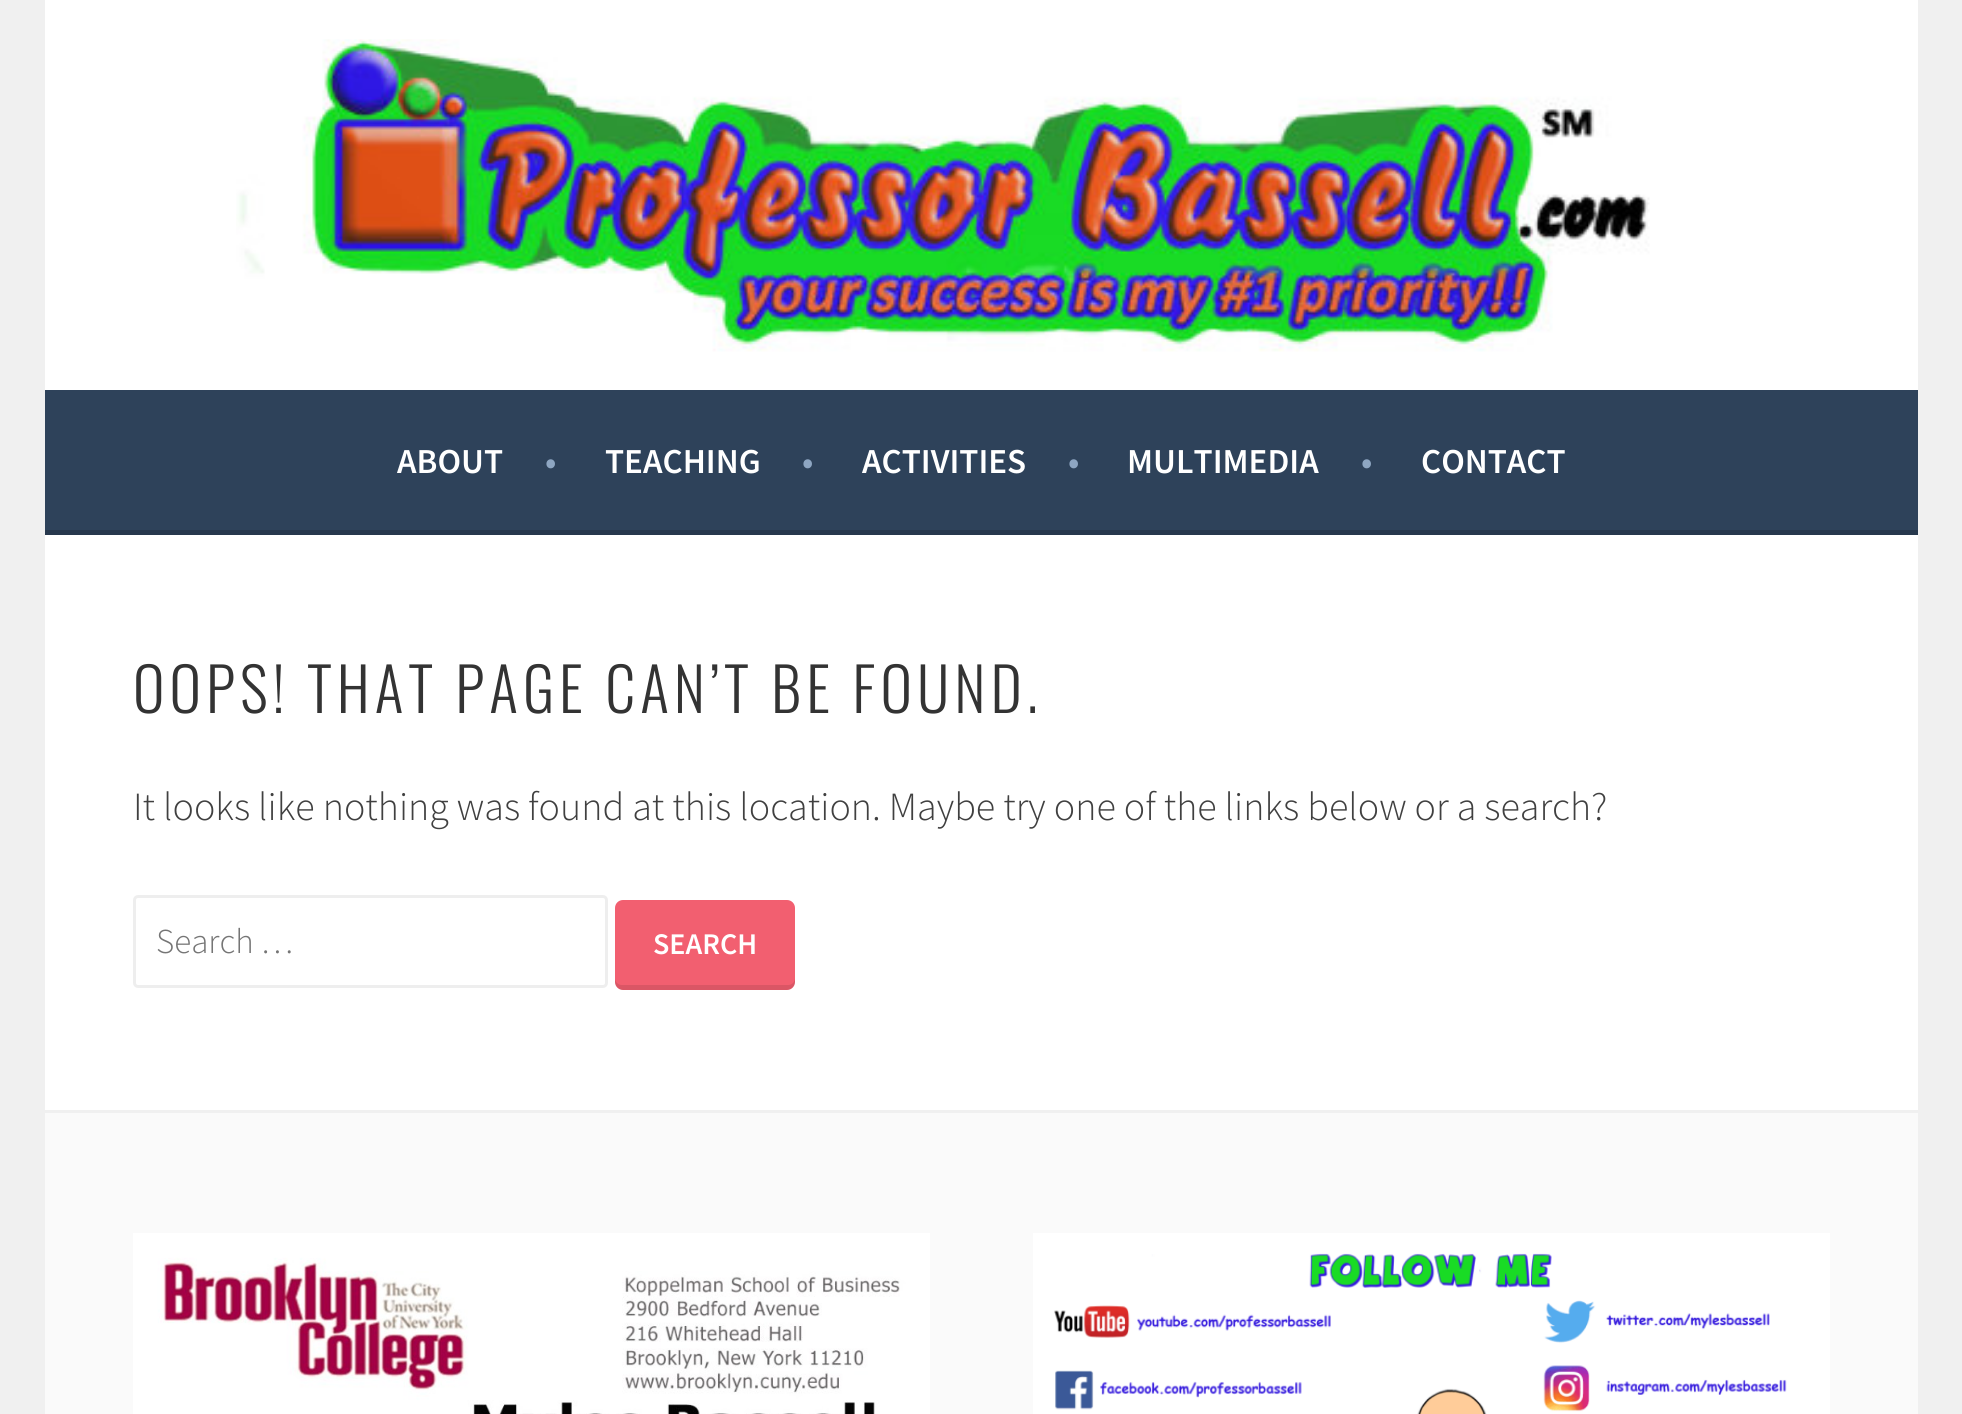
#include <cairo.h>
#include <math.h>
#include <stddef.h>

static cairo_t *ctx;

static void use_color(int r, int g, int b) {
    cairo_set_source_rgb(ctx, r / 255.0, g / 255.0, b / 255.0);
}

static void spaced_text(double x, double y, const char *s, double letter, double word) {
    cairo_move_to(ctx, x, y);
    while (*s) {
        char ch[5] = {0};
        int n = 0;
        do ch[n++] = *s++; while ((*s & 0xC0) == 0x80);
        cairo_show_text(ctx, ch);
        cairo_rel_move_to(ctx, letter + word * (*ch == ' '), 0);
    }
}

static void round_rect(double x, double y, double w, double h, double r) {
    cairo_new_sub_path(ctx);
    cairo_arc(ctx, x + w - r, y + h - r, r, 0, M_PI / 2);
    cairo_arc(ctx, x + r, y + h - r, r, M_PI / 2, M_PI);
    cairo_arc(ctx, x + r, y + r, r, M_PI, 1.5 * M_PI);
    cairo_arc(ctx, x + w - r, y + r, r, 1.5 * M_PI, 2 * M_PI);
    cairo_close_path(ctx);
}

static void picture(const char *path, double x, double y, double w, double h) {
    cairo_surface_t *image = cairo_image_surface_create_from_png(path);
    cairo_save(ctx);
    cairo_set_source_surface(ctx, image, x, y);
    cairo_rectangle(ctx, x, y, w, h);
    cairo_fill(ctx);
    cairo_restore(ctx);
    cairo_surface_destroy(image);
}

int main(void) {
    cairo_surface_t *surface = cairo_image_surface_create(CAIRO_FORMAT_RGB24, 1962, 1414);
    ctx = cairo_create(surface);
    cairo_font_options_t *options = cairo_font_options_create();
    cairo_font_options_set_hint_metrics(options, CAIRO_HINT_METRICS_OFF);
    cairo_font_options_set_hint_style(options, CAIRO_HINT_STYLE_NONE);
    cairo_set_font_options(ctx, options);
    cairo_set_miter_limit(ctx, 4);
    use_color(240, 240, 240);
    cairo_paint(ctx);
    use_color(255, 255, 255);
    cairo_rectangle(ctx, 45, 0, 1873, 390);
    cairo_fill(ctx);
    picture("img1.png", 236, 39, 1414, 313);
    use_color(46, 66, 90);
    cairo_rectangle(ctx, 45, 390, 1873, 140);
    cairo_fill(ctx);
    use_color(39, 56, 77);
    cairo_rectangle(ctx, 45, 530, 1873, 5);
    cairo_fill(ctx);
    cairo_select_font_face(ctx, "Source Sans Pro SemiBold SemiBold", CAIRO_FONT_SLANT_NORMAL, CAIRO_FONT_WEIGHT_NORMAL);
    cairo_set_font_size(ctx, 35);
    use_color(255, 255, 255);
    cairo_move_to(ctx, 397, 473);
    cairo_show_text(ctx, "ABOUT");
    use_color(142, 166, 194);
    cairo_move_to(ctx, 545, 473);
    cairo_show_text(ctx, "•");
    use_color(255, 255, 255);
    cairo_move_to(ctx, 605, 473);
    cairo_show_text(ctx, "TEACHING");
    use_color(142, 166, 194);
    cairo_move_to(ctx, 802, 473);
    cairo_show_text(ctx, "•");
    use_color(255, 255, 255);
    cairo_move_to(ctx, 862, 473);
    cairo_show_text(ctx, "ACTIVITIES");
    use_color(142, 166, 194);
    cairo_move_to(ctx, 1068, 473);
    cairo_show_text(ctx, "•");
    use_color(255, 255, 255);
    cairo_move_to(ctx, 1127, 473);
    cairo_show_text(ctx, "MULTIMEDIA");
    use_color(142, 166, 194);
    cairo_move_to(ctx, 1361, 473);
    cairo_show_text(ctx, "•");
    use_color(255, 255, 255);
    cairo_move_to(ctx, 1421, 473);
    cairo_show_text(ctx, "CONTACT");
    cairo_rectangle(ctx, 45, 535, 1873, 575);
    cairo_fill(ctx);
    cairo_select_font_face(ctx, "Oswald Light", CAIRO_FONT_SLANT_NORMAL, CAIRO_FONT_WEIGHT_NORMAL);
    cairo_set_font_size(ctx, 60);
    use_color(51, 51, 51);
    spaced_text(133, 713, "OOPS! THAT PAGE CAN’T BE FOUND.", 5, 0);
    cairo_select_font_face(ctx, "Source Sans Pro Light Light", CAIRO_FONT_SLANT_NORMAL, CAIRO_FONT_WEIGHT_NORMAL);
    cairo_set_font_size(ctx, 40);
    use_color(64, 64, 64);
    cairo_move_to(ctx, 133, 820);
    cairo_show_text(ctx, "It looks like nothing was found at this location. Maybe try one of the links below or a search?");
    round_rect(134.5, 896.5, 472, 90, 3.5);
    use_color(238, 238, 238);
    cairo_set_line_width(ctx, 3);
    cairo_stroke(ctx);
    cairo_set_font_size(ctx, 35);
    use_color(117, 117, 117);
    cairo_move_to(ctx, 156, 953);
    cairo_show_text(ctx, "Search …");
    use_color(242, 95, 112);
    round_rect(615, 900, 180, 90, 8);
    cairo_fill(ctx);
    cairo_set_source_rgba(ctx, 0, 0, 0, 0.1);
    cairo_new_path(ctx);
    cairo_move_to(ctx, 615, 978);
    cairo_line_to(ctx, 615, 982);
    cairo_curve_to(ctx, 615, 986, 619, 990, 623, 990);
    cairo_line_to(ctx, 787, 990);
    cairo_curve_to(ctx, 791, 990, 795, 986, 795, 982);
    cairo_line_to(ctx, 795, 978);
    cairo_curve_to(ctx, 795, 982, 792, 985, 788, 985);
    cairo_line_to(ctx, 622, 985);
    cairo_curve_to(ctx, 618, 985, 615, 982, 615, 978);
    cairo_close_path(ctx);
    cairo_fill(ctx);
    cairo_select_font_face(ctx, "Source Sans Pro SemiBold SemiBold", CAIRO_FONT_SLANT_NORMAL, CAIRO_FONT_WEIGHT_NORMAL);
    cairo_set_font_size(ctx, 30);
    use_color(255, 255, 255);
    cairo_move_to(ctx, 653, 954);
    cairo_show_text(ctx, "SEARCH");
    use_color(250, 250, 250);
    cairo_rectangle(ctx, 45, 1113, 1873, 301);
    cairo_fill(ctx);
    picture("img2.png", 133, 1233, 797, 181);
    picture("img3.png", 1033, 1233, 797, 181);
    cairo_surface_write_to_png(surface, "result.png");
    cairo_font_options_destroy(options);
    cairo_destroy(ctx);
    cairo_surface_destroy(surface);
    return 0;
}
